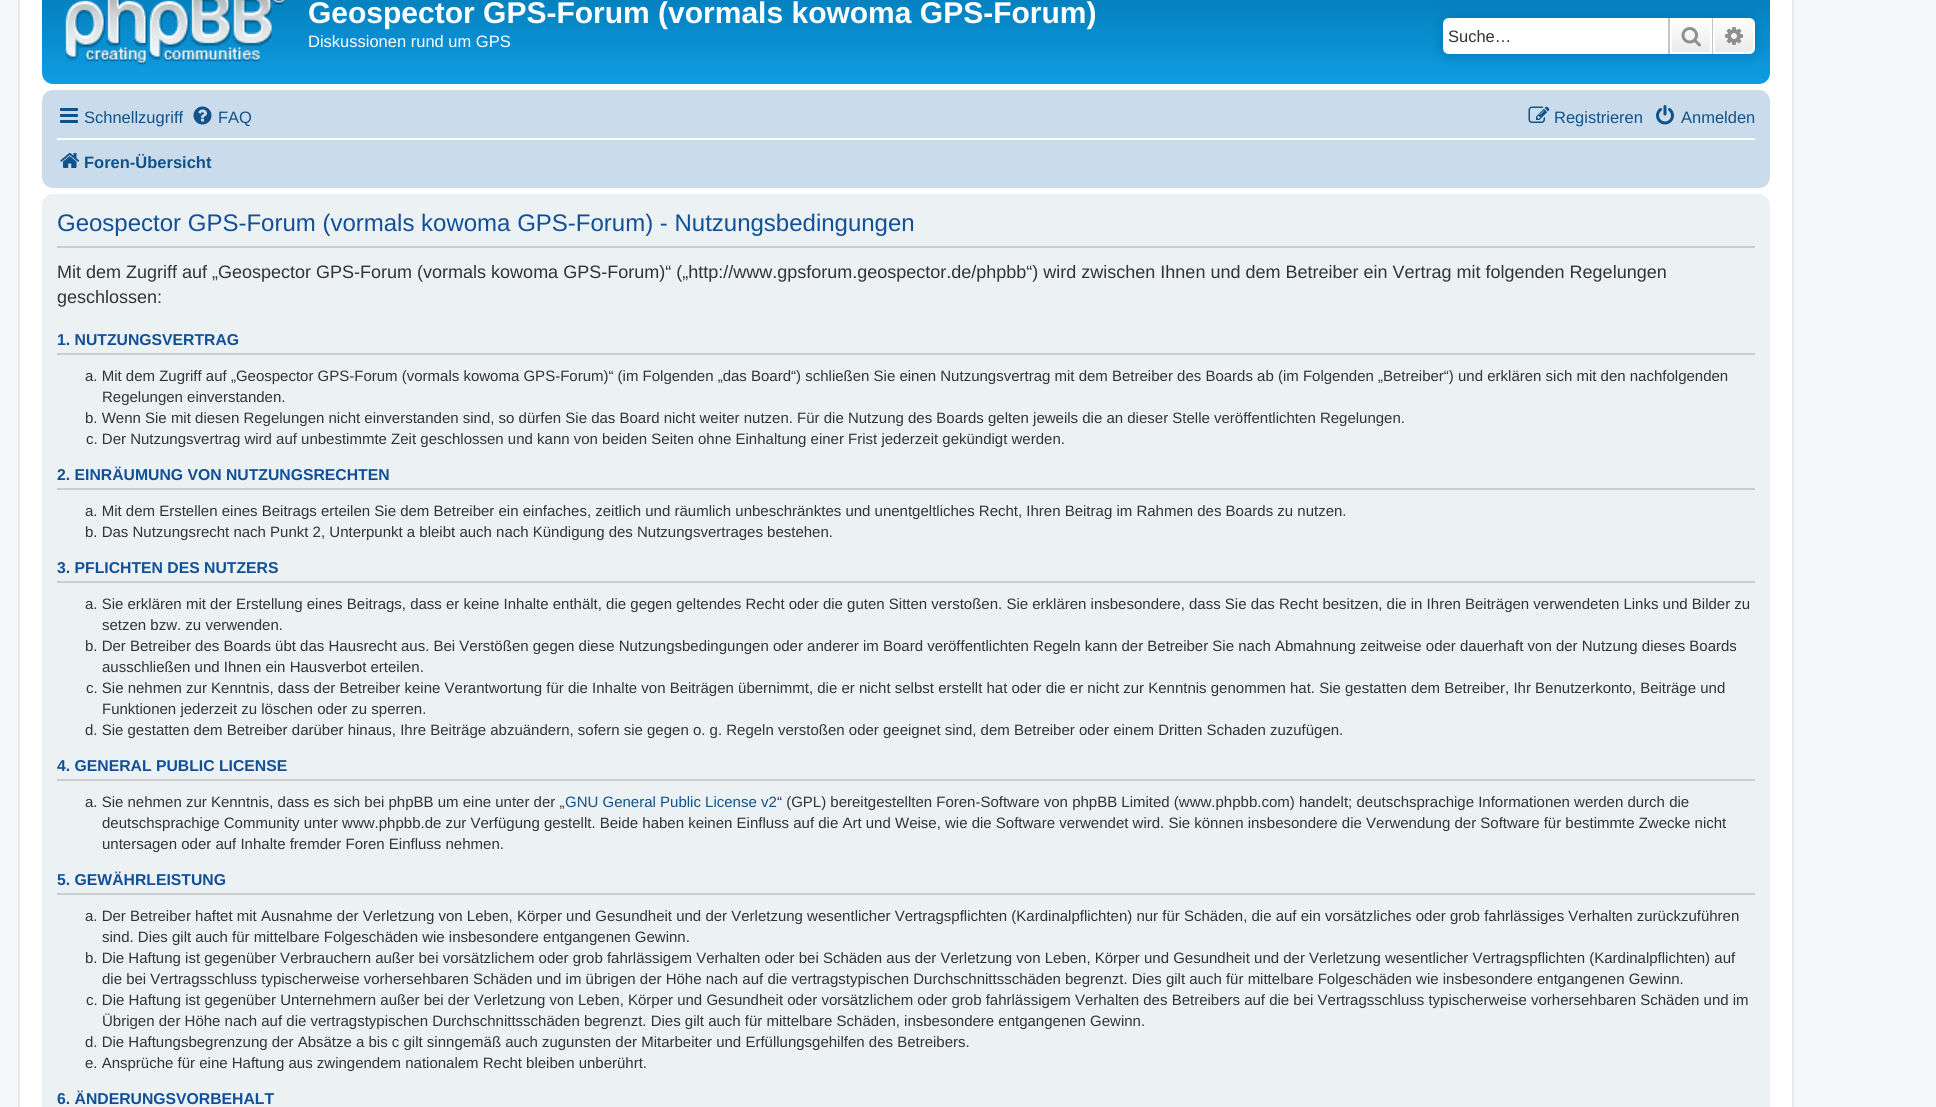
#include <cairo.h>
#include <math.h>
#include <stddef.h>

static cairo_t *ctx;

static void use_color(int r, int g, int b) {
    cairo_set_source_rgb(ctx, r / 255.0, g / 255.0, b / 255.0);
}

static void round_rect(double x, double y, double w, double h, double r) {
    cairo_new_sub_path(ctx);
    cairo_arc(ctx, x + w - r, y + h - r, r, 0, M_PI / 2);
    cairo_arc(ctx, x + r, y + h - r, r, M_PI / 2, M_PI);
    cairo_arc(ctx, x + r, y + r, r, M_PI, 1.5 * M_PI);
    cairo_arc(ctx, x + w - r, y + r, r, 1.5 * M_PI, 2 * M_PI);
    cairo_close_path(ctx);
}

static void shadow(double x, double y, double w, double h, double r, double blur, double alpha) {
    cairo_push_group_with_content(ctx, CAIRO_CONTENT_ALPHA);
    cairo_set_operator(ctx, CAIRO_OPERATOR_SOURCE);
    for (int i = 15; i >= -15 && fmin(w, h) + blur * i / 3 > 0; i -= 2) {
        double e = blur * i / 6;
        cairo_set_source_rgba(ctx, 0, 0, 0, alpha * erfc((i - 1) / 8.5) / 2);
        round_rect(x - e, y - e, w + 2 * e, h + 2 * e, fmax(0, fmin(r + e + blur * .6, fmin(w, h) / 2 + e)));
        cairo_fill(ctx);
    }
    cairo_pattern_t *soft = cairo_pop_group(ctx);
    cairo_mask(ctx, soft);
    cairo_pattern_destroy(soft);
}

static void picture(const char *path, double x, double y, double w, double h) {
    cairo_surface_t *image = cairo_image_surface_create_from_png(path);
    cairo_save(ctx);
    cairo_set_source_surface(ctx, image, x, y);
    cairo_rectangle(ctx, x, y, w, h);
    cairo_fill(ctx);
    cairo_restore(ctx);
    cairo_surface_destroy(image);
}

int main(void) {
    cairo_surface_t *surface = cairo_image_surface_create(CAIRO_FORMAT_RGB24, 1936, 1107);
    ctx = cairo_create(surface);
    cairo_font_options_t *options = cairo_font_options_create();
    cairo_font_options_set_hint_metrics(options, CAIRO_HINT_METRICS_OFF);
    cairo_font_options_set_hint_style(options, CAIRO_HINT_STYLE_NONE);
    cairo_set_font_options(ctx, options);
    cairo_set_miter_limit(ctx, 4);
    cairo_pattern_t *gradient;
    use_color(245, 247, 250);
    cairo_paint(ctx);
    use_color(255, 255, 255);
    cairo_rectangle(ctx, 19, -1, 1774, 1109);
    cairo_fill_preserve(ctx);
    use_color(230, 233, 237);
    cairo_stroke(ctx);
    gradient = cairo_pattern_create_linear(906, -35, 906, 103);
    cairo_pattern_add_color_stop_rgba(gradient, 0, 0.416, 0.808, 1, 1);
    cairo_pattern_add_color_stop_rgba(gradient, 0.02, 0, 0.463, 0.694, 1);
    cairo_pattern_add_color_stop_rgba(gradient, 1, 0.071, 0.639, 0.922, 1);
    cairo_set_source(ctx, gradient);
    cairo_pattern_destroy(gradient);
    round_rect(42, -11, 1728, 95, 11);
    cairo_fill(ctx);
    picture("img1.png", 65, 0, 221, 65);
    cairo_select_font_face(ctx, "Liberation Sans", CAIRO_FONT_SLANT_NORMAL, CAIRO_FONT_WEIGHT_BOLD);
    cairo_set_font_size(ctx, 30);
    use_color(255, 255, 255);
    cairo_move_to(ctx, 308, 23);
    cairo_show_text(ctx, "Geospector GPS-Forum (vormals kowoma GPS-Forum)");
    cairo_select_font_face(ctx, "Liberation Sans", CAIRO_FONT_SLANT_NORMAL, CAIRO_FONT_WEIGHT_NORMAL);
    cairo_set_font_size(ctx, 16.5);
    cairo_move_to(ctx, 308, 47);
    cairo_show_text(ctx, "Diskussionen rund um GPS");
    use_color(0, 117, 176);
    shadow(1443, 18, 312, 36, 6, 7.5, 1);
    use_color(255, 255, 255);
    cairo_new_path(ctx);
    cairo_move_to(ctx, 1449, 18);
    cairo_line_to(ctx, 1668, 18);
    cairo_line_to(ctx, 1668, 54);
    cairo_line_to(ctx, 1449, 54);
    cairo_curve_to(ctx, 1445.5, 54, 1443, 51.5, 1443, 48);
    cairo_line_to(ctx, 1443, 24);
    cairo_curve_to(ctx, 1443, 20.5, 1445.5, 18, 1449, 18);
    cairo_close_path(ctx);
    cairo_fill(ctx);
    use_color(51, 51, 51);
    cairo_move_to(ctx, 1448, 42);
    cairo_show_text(ctx, "Suche…");
    gradient = cairo_pattern_create_linear(1691, 18, 1691, 54);
    cairo_pattern_add_color_stop_rgba(gradient, 0, 1, 1, 1, 1);
    cairo_pattern_add_color_stop_rgba(gradient, 1, 0.914, 0.914, 0.914, 1);
    cairo_set_source(ctx, gradient);
    cairo_pattern_destroy(gradient);
    cairo_rectangle(ctx, 1672, 20, 38, 32);
    cairo_fill(ctx);
    cairo_rectangle(ctx, 1671, 19, 40, 34);
    use_color(255, 255, 255);
    cairo_stroke(ctx);
    use_color(199, 195, 191);
    cairo_rectangle(ctx, 1712, 18, 1, 36);
    cairo_fill(ctx);
    cairo_rectangle(ctx, 1668, 18, 2, 36);
    cairo_fill(ctx);
    picture("img2.png", 1681, 27, 20, 20);
    gradient = cairo_pattern_create_linear(1734, 18, 1734, 54);
    cairo_pattern_add_color_stop_rgba(gradient, 0, 1, 1, 1, 1);
    cairo_pattern_add_color_stop_rgba(gradient, 1, 0.914, 0.914, 0.914, 1);
    cairo_set_source(ctx, gradient);
    cairo_pattern_destroy(gradient);
    cairo_new_path(ctx);
    cairo_move_to(ctx, 1714, 19);
    cairo_line_to(ctx, 1749, 19);
    cairo_curve_to(ctx, 1752, 19, 1754, 21, 1754, 24);
    cairo_line_to(ctx, 1754, 48);
    cairo_curve_to(ctx, 1754, 51, 1752, 53, 1749, 53);
    cairo_line_to(ctx, 1714, 53);
    cairo_close_path(ctx);
    cairo_fill_preserve(ctx);
    use_color(255, 255, 255);
    cairo_stroke(ctx);
    picture("img3.png", 1725, 27, 18, 18);
    use_color(202, 220, 235);
    round_rect(42, 90, 1728, 98, 11);
    cairo_fill(ctx);
    picture("img4.png", 60, 108, 18, 15);
    use_color(16, 82, 137);
    cairo_move_to(ctx, 84, 123);
    cairo_show_text(ctx, "Schnellzugriff");
    picture("img5.png", 193, 106, 19, 19);
    cairo_move_to(ctx, 218, 123);
    cairo_show_text(ctx, "FAQ");
    picture("img6.png", 1528, 106, 22, 17);
    cairo_move_to(ctx, 1554, 123);
    cairo_show_text(ctx, "Registrieren");
    picture("img7.png", 1656, 105, 18, 20);
    cairo_move_to(ctx, 1681, 123);
    cairo_show_text(ctx, "Anmelden");
    use_color(255, 255, 255);
    cairo_rectangle(ctx, 57, 138, 1698, 2);
    cairo_fill(ctx);
    picture("img8.png", 60, 153, 20, 15);
    cairo_select_font_face(ctx, "Liberation Sans", CAIRO_FONT_SLANT_NORMAL, CAIRO_FONT_WEIGHT_BOLD);
    use_color(16, 82, 137);
    cairo_move_to(ctx, 84, 168);
    cairo_show_text(ctx, "Foren-Übersicht");
    use_color(236, 241, 243);
    round_rect(42, 194, 1728, 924, 11);
    cairo_fill(ctx);
    use_color(204, 204, 204);
    cairo_rectangle(ctx, 57, 246, 1698, 2);
    cairo_fill(ctx);
    cairo_select_font_face(ctx, "Liberation Sans", CAIRO_FONT_SLANT_NORMAL, CAIRO_FONT_WEIGHT_NORMAL);
    cairo_set_font_size(ctx, 24);
    use_color(17, 80, 152);
    cairo_move_to(ctx, 57, 231);
    cairo_show_text(ctx, "Geospector GPS-Forum (vormals kowoma GPS-Forum) - Nutzungsbedingungen");
    cairo_set_font_size(ctx, 18);
    use_color(51, 51, 51);
    cairo_move_to(ctx, 57, 278);
    cairo_show_text(ctx, "Mit dem Zugriff auf „Geospector GPS-Forum (vormals kowoma GPS-Forum)“ („http://www.gpsforum.geospector.de/phpbb“) wird zwischen Ihnen und dem Betreiber ein Vertrag mit folgenden Regelungen");
    cairo_move_to(ctx, 57, 303);
    cairo_show_text(ctx, "geschlossen:");
    use_color(204, 204, 204);
    cairo_rectangle(ctx, 57, 353, 1698, 2);
    cairo_fill(ctx);
    cairo_select_font_face(ctx, "Liberation Sans", CAIRO_FONT_SLANT_NORMAL, CAIRO_FONT_WEIGHT_BOLD);
    cairo_set_font_size(ctx, 15.75);
    use_color(17, 80, 152);
    cairo_move_to(ctx, 57, 345);
    cairo_show_text(ctx, "1. NUTZUNGSVERTRAG");
    cairo_select_font_face(ctx, "Liberation Sans", CAIRO_FONT_SLANT_NORMAL, CAIRO_FONT_WEIGHT_NORMAL);
    cairo_set_font_size(ctx, 15);
    use_color(51, 51, 51);
    cairo_move_to(ctx, 85, 381);
    cairo_show_text(ctx, "a. Mit dem Zugriff auf „Geospector GPS-Forum (vormals kowoma GPS-Forum)“ (im Folgenden „das Board“) schließen Sie einen Nutzungsvertrag mit dem Betreiber des Boards ab (im Folgenden „Betreiber“) und erklären sich mit den nachfolgenden");
    cairo_move_to(ctx, 102, 402);
    cairo_show_text(ctx, "Regelungen einverstanden.");
    cairo_move_to(ctx, 85, 423);
    cairo_show_text(ctx, "b. Wenn Sie mit diesen Regelungen nicht einverstanden sind, so dürfen Sie das Board nicht weiter nutzen. Für die Nutzung des Boards gelten jeweils die an dieser Stelle veröffentlichten Regelungen.");
    cairo_move_to(ctx, 86, 444);
    cairo_show_text(ctx, "c. Der Nutzungsvertrag wird auf unbestimmte Zeit geschlossen und kann von beiden Seiten ohne Einhaltung einer Frist jederzeit gekündigt werden.");
    use_color(204, 204, 204);
    cairo_rectangle(ctx, 57, 488, 1698, 2);
    cairo_fill(ctx);
    cairo_select_font_face(ctx, "Liberation Sans", CAIRO_FONT_SLANT_NORMAL, CAIRO_FONT_WEIGHT_BOLD);
    cairo_set_font_size(ctx, 15.75);
    use_color(17, 80, 152);
    cairo_move_to(ctx, 57, 480);
    cairo_show_text(ctx, "2. EINRÄUMUNG VON NUTZUNGSRECHTEN");
    cairo_select_font_face(ctx, "Liberation Sans", CAIRO_FONT_SLANT_NORMAL, CAIRO_FONT_WEIGHT_NORMAL);
    cairo_set_font_size(ctx, 15);
    use_color(51, 51, 51);
    cairo_move_to(ctx, 85, 516);
    cairo_show_text(ctx, "a. Mit dem Erstellen eines Beitrags erteilen Sie dem Betreiber ein einfaches, zeitlich und räumlich unbeschränktes und unentgeltliches Recht, Ihren Beitrag im Rahmen des Boards zu nutzen.");
    cairo_move_to(ctx, 85, 537);
    cairo_show_text(ctx, "b. Das Nutzungsrecht nach Punkt 2, Unterpunkt a bleibt auch nach Kündigung des Nutzungsvertrages bestehen.");
    use_color(204, 204, 204);
    cairo_rectangle(ctx, 57, 581, 1698, 2);
    cairo_fill(ctx);
    cairo_select_font_face(ctx, "Liberation Sans", CAIRO_FONT_SLANT_NORMAL, CAIRO_FONT_WEIGHT_BOLD);
    cairo_set_font_size(ctx, 15.75);
    use_color(17, 80, 152);
    cairo_move_to(ctx, 57, 573);
    cairo_show_text(ctx, "3. PFLICHTEN DES NUTZERS");
    cairo_select_font_face(ctx, "Liberation Sans", CAIRO_FONT_SLANT_NORMAL, CAIRO_FONT_WEIGHT_NORMAL);
    cairo_set_font_size(ctx, 15);
    use_color(51, 51, 51);
    cairo_move_to(ctx, 85, 609);
    cairo_show_text(ctx, "a. Sie erklären mit der Erstellung eines Beitrags, dass er keine Inhalte enthält, die gegen geltendes Recht oder die guten Sitten verstoßen. Sie erklären insbesondere, dass Sie das Recht besitzen, die in Ihren Beiträgen verwendeten Links und Bilder zu");
    cairo_move_to(ctx, 102, 630);
    cairo_show_text(ctx, "setzen bzw. zu verwenden.");
    cairo_move_to(ctx, 85, 651);
    cairo_show_text(ctx, "b. Der Betreiber des Boards übt das Hausrecht aus. Bei Verstößen gegen diese Nutzungsbedingungen oder anderer im Board veröffentlichten Regeln kann der Betreiber Sie nach Abmahnung zeitweise oder dauerhaft von der Nutzung dieses Boards");
    cairo_move_to(ctx, 102, 672);
    cairo_show_text(ctx, "ausschließen und Ihnen ein Hausverbot erteilen.");
    cairo_move_to(ctx, 86, 693);
    cairo_show_text(ctx, "c. Sie nehmen zur Kenntnis, dass der Betreiber keine Verantwortung für die Inhalte von Beiträgen übernimmt, die er nicht selbst erstellt hat oder die er nicht zur Kenntnis genommen hat. Sie gestatten dem Betreiber, Ihr Benutzerkonto, Beiträge und");
    cairo_move_to(ctx, 102, 714);
    cairo_show_text(ctx, "Funktionen jederzeit zu löschen oder zu sperren.");
    cairo_move_to(ctx, 85, 735);
    cairo_show_text(ctx, "d. Sie gestatten dem Betreiber darüber hinaus, Ihre Beiträge abzuändern, sofern sie gegen o. g. Regeln verstoßen oder geeignet sind, dem Betreiber oder einem Dritten Schaden zuzufügen.");
    use_color(204, 204, 204);
    cairo_rectangle(ctx, 57, 779, 1698, 2);
    cairo_fill(ctx);
    cairo_select_font_face(ctx, "Liberation Sans", CAIRO_FONT_SLANT_NORMAL, CAIRO_FONT_WEIGHT_BOLD);
    cairo_set_font_size(ctx, 15.75);
    use_color(17, 80, 152);
    cairo_move_to(ctx, 57, 771);
    cairo_show_text(ctx, "4. GENERAL PUBLIC LICENSE");
    cairo_select_font_face(ctx, "Liberation Sans", CAIRO_FONT_SLANT_NORMAL, CAIRO_FONT_WEIGHT_NORMAL);
    cairo_set_font_size(ctx, 15);
    use_color(51, 51, 51);
    cairo_move_to(ctx, 85, 807);
    cairo_show_text(ctx, "a. Sie nehmen zur Kenntnis, dass es sich bei phpBB um eine unter der „");
    use_color(16, 82, 137);
    cairo_move_to(ctx, 565, 807);
    cairo_show_text(ctx, "GNU General Public License v2");
    use_color(51, 51, 51);
    cairo_move_to(ctx, 777, 807);
    cairo_show_text(ctx, "“ (GPL) bereitgestellten Foren-Software von phpBB Limited (www.phpbb.com) handelt; deutschsprachige Informationen werden durch die");
    cairo_move_to(ctx, 102, 828);
    cairo_show_text(ctx, "deutschsprachige Community unter www.phpbb.de zur Verfügung gestellt. Beide haben keinen Einfluss auf die Art und Weise, wie die Software verwendet wird. Sie können insbesondere die Verwendung der Software für bestimmte Zwecke nicht");
    cairo_move_to(ctx, 102, 849);
    cairo_show_text(ctx, "untersagen oder auf Inhalte fremder Foren Einfluss nehmen.");
    use_color(204, 204, 204);
    cairo_rectangle(ctx, 57, 893, 1698, 2);
    cairo_fill(ctx);
    cairo_select_font_face(ctx, "Liberation Sans", CAIRO_FONT_SLANT_NORMAL, CAIRO_FONT_WEIGHT_BOLD);
    cairo_set_font_size(ctx, 15.75);
    use_color(17, 80, 152);
    cairo_move_to(ctx, 57, 885);
    cairo_show_text(ctx, "5. GEWÄHRLEISTUNG");
    cairo_select_font_face(ctx, "Liberation Sans", CAIRO_FONT_SLANT_NORMAL, CAIRO_FONT_WEIGHT_NORMAL);
    cairo_set_font_size(ctx, 15);
    use_color(51, 51, 51);
    cairo_move_to(ctx, 85, 921);
    cairo_show_text(ctx, "a. Der Betreiber haftet mit Ausnahme der Verletzung von Leben, Körper und Gesundheit und der Verletzung wesentlicher Vertragspflichten (Kardinalpflichten) nur für Schäden, die auf ein vorsätzliches oder grob fahrlässiges Verhalten zurückzuführen");
    cairo_move_to(ctx, 102, 942);
    cairo_show_text(ctx, "sind. Dies gilt auch für mittelbare Folgeschäden wie insbesondere entgangenen Gewinn.");
    cairo_move_to(ctx, 85, 963);
    cairo_show_text(ctx, "b. Die Haftung ist gegenüber Verbrauchern außer bei vorsätzlichem oder grob fahrlässigem Verhalten oder bei Schäden aus der Verletzung von Leben, Körper und Gesundheit und der Verletzung wesentlicher Vertragspflichten (Kardinalpflichten) auf");
    cairo_move_to(ctx, 102, 984);
    cairo_show_text(ctx, "die bei Vertragsschluss typischerweise vorhersehbaren Schäden und im übrigen der Höhe nach auf die vertragstypischen Durchschnittsschäden begrenzt. Dies gilt auch für mittelbare Folgeschäden wie insbesondere entgangenen Gewinn.");
    cairo_move_to(ctx, 86, 1005);
    cairo_show_text(ctx, "c. Die Haftung ist gegenüber Unternehmern außer bei der Verletzung von Leben, Körper und Gesundheit oder vorsätzlichem oder grob fahrlässigem Verhalten des Betreibers auf die bei Vertragsschluss typischerweise vorhersehbaren Schäden und im");
    cairo_move_to(ctx, 102, 1026);
    cairo_show_text(ctx, "Übrigen der Höhe nach auf die vertragstypischen Durchschnittsschäden begrenzt. Dies gilt auch für mittelbare Schäden, insbesondere entgangenen Gewinn.");
    cairo_move_to(ctx, 85, 1047);
    cairo_show_text(ctx, "d. Die Haftungsbegrenzung der Absätze a bis c gilt sinngemäß auch zugunsten der Mitarbeiter und Erfüllungsgehilfen des Betreibers.");
    cairo_move_to(ctx, 85, 1068);
    cairo_show_text(ctx, "e. Ansprüche für eine Haftung aus zwingendem nationalem Recht bleiben unberührt.");
    cairo_select_font_face(ctx, "Liberation Sans", CAIRO_FONT_SLANT_NORMAL, CAIRO_FONT_WEIGHT_BOLD);
    cairo_set_font_size(ctx, 15.75);
    use_color(17, 80, 152);
    cairo_move_to(ctx, 57, 1104);
    cairo_show_text(ctx, "6. ÄNDERUNGSVORBEHALT");
    cairo_surface_write_to_png(surface, "result.png");
    cairo_font_options_destroy(options);
    cairo_destroy(ctx);
    cairo_surface_destroy(surface);
    return 0;
}
